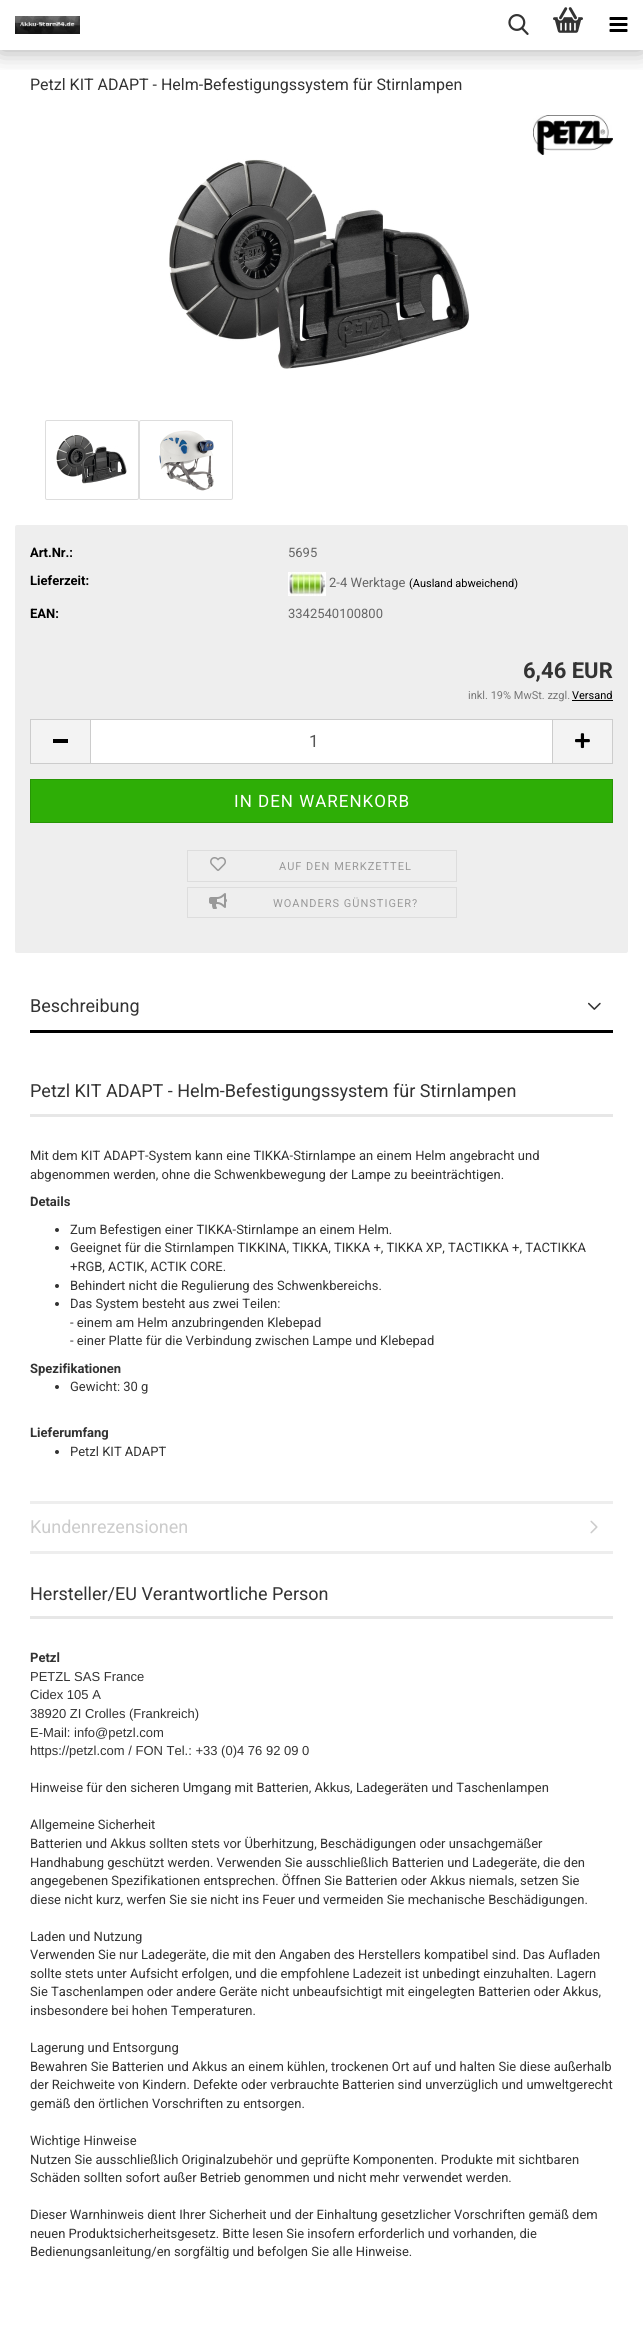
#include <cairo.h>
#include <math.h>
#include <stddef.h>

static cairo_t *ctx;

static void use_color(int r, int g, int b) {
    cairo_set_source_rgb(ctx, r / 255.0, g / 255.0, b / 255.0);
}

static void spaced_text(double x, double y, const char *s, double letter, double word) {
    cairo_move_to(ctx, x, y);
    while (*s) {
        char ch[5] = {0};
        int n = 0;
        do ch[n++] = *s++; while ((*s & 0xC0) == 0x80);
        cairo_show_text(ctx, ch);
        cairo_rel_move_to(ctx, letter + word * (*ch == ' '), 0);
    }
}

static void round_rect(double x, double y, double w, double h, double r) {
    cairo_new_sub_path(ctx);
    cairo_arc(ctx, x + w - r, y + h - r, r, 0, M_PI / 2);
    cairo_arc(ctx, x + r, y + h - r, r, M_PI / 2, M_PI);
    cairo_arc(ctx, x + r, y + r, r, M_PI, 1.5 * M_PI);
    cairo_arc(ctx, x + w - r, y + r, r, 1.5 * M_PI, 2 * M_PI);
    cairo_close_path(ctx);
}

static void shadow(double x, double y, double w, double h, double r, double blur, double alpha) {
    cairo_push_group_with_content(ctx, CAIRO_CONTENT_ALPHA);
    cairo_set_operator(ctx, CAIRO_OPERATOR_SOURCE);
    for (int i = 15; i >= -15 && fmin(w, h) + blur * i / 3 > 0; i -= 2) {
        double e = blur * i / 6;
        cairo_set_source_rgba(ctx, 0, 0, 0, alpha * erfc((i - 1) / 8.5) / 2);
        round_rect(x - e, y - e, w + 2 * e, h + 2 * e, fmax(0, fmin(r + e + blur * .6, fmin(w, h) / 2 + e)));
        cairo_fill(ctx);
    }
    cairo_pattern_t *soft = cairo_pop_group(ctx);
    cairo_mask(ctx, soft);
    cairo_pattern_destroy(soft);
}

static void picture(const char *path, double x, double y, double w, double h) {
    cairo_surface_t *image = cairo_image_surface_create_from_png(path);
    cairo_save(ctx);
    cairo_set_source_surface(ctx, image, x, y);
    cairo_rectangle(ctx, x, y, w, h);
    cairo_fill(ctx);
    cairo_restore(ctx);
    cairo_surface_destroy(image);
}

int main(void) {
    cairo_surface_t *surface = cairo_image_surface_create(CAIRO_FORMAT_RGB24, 643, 2333);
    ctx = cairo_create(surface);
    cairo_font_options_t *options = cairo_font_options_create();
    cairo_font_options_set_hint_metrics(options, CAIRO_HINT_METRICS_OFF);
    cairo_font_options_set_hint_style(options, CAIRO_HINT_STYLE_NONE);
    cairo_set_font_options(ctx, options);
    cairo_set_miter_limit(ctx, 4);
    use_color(255, 255, 255);
    cairo_paint(ctx);
    cairo_save(ctx);
    cairo_rectangle(ctx, 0, 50, 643, 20);
    cairo_clip(ctx);
    use_color(0, 0, 0);
    shadow(0, 0, 643, 50, 0, 12.5, 0.35);
    cairo_restore(ctx);
    picture("img1.png", 15, 16, 65, 18);
    picture("img2.png", 508, 14, 21, 21);
    picture("img3.png", 553, 7, 30, 26);
    picture("img4.png", 609, 17, 19, 15);
    cairo_select_font_face(ctx, "Roboto", CAIRO_FONT_SLANT_NORMAL, CAIRO_FONT_WEIGHT_NORMAL);
    cairo_set_font_size(ctx, 16);
    use_color(51, 51, 51);
    cairo_move_to(ctx, 30, 90);
    cairo_show_text(ctx, "Petzl KIT ADAPT - Helm-Befestigungssystem für Stirnlampen");
    picture("img5.png", 533, 115, 80, 40);
    picture("img6.png", 169, 159, 301, 210);
    round_rect(45.5, 420.5, 93, 79, 1.5);
    use_color(221, 221, 221);
    cairo_set_line_width(ctx, 1);
    cairo_stroke(ctx);
    picture("img7.png", 56, 435, 71, 49);
    round_rect(139.5, 420.5, 93, 79, 1.5);
    cairo_stroke(ctx);
    picture("img8.png", 159, 430, 55, 61);
    use_color(238, 238, 238);
    round_rect(15, 525, 613, 428, 2);
    cairo_fill(ctx);
    cairo_select_font_face(ctx, "Roboto", CAIRO_FONT_SLANT_NORMAL, CAIRO_FONT_WEIGHT_BOLD);
    cairo_set_font_size(ctx, 13);
    use_color(0, 0, 0);
    cairo_move_to(ctx, 30, 557);
    cairo_show_text(ctx, "Art.Nr.:");
    cairo_select_font_face(ctx, "Roboto", CAIRO_FONT_SLANT_NORMAL, CAIRO_FONT_WEIGHT_NORMAL);
    use_color(102, 102, 102);
    cairo_move_to(ctx, 288, 557);
    cairo_show_text(ctx, "5695");
    cairo_select_font_face(ctx, "Roboto", CAIRO_FONT_SLANT_NORMAL, CAIRO_FONT_WEIGHT_BOLD);
    use_color(0, 0, 0);
    cairo_move_to(ctx, 30, 585);
    cairo_show_text(ctx, "Lieferzeit:");
    picture("img9.png", 288, 572, 38, 24);
    cairo_select_font_face(ctx, "Roboto", CAIRO_FONT_SLANT_NORMAL, CAIRO_FONT_WEIGHT_NORMAL);
    use_color(102, 102, 102);
    cairo_move_to(ctx, 329, 587);
    cairo_show_text(ctx, "2-4 Werktage");
    cairo_set_font_size(ctx, 11);
    use_color(0, 0, 0);
    cairo_move_to(ctx, 409, 587);
    cairo_show_text(ctx, "(Ausland abweichend)");
    cairo_select_font_face(ctx, "Roboto", CAIRO_FONT_SLANT_NORMAL, CAIRO_FONT_WEIGHT_BOLD);
    cairo_set_font_size(ctx, 13);
    cairo_move_to(ctx, 30, 618);
    cairo_show_text(ctx, "EAN:");
    cairo_select_font_face(ctx, "Roboto", CAIRO_FONT_SLANT_NORMAL, CAIRO_FONT_WEIGHT_NORMAL);
    use_color(102, 102, 102);
    cairo_move_to(ctx, 288, 618);
    cairo_show_text(ctx, "3342540100800");
    cairo_select_font_face(ctx, "Roboto", CAIRO_FONT_SLANT_NORMAL, CAIRO_FONT_WEIGHT_BOLD);
    cairo_set_font_size(ctx, 22);
    use_color(51, 51, 51);
    cairo_move_to(ctx, 523, 678);
    cairo_show_text(ctx, "6,46 EUR");
    cairo_select_font_face(ctx, "Roboto", CAIRO_FONT_SLANT_NORMAL, CAIRO_FONT_WEIGHT_NORMAL);
    cairo_set_font_size(ctx, 11);
    use_color(119, 119, 119);
    cairo_move_to(ctx, 468, 699);
    cairo_show_text(ctx, "inkl. 19% MwSt. zzgl.");
    use_color(0, 0, 0);
    cairo_move_to(ctx, 572, 699);
    cairo_show_text(ctx, "Versand");
    cairo_rectangle(ctx, 572, 700, 41, 1);
    cairo_fill(ctx);
    use_color(243, 243, 243);
    cairo_rectangle(ctx, 31, 720, 59, 43);
    cairo_fill(ctx);
    use_color(204, 204, 204);
    cairo_rectangle(ctx, 30, 719, 60, 1);
    cairo_fill(ctx);
    cairo_rectangle(ctx, 30, 763, 60, 1);
    cairo_fill(ctx);
    cairo_rectangle(ctx, 30, 719, 1, 45);
    cairo_fill(ctx);
    use_color(0, 0, 0);
    cairo_rectangle(ctx, 53, 739, 15, 4);
    cairo_fill(ctx);
    use_color(255, 255, 255);
    cairo_rectangle(ctx, 90.5, 719.5, 462, 44);
    cairo_fill_preserve(ctx);
    use_color(204, 204, 204);
    cairo_stroke(ctx);
    cairo_set_font_size(ctx, 17);
    use_color(85, 85, 85);
    cairo_move_to(ctx, 309, 747);
    cairo_show_text(ctx, "1");
    use_color(243, 243, 243);
    cairo_rectangle(ctx, 553, 720, 59, 43);
    cairo_fill(ctx);
    use_color(204, 204, 204);
    cairo_rectangle(ctx, 553, 719, 60, 1);
    cairo_fill(ctx);
    cairo_rectangle(ctx, 612, 719, 1, 45);
    cairo_fill(ctx);
    cairo_rectangle(ctx, 553, 763, 60, 1);
    cairo_fill(ctx);
    picture("img10.png", 575, 733, 15, 16);
    use_color(46, 174, 6);
    cairo_rectangle(ctx, 30.5, 779.5, 582, 43);
    cairo_fill_preserve(ctx);
    use_color(39, 149, 5);
    cairo_stroke(ctx);
    use_color(255, 255, 255);
    spaced_text(234, 807, "IN DEN WARENKORB", 1, 0);
    cairo_rectangle(ctx, 187.5, 850.5, 269, 31);
    use_color(221, 221, 221);
    cairo_stroke(ctx);
    picture("img11.png", 210, 857, 16, 14);
    cairo_set_font_size(ctx, 11);
    use_color(153, 153, 153);
    spaced_text(279, 870, "AUF DEN MERKZETTEL", 1, 0);
    cairo_rectangle(ctx, 187.5, 887.5, 269, 30);
    use_color(221, 221, 221);
    cairo_stroke(ctx);
    picture("img12.png", 209, 893, 18, 16);
    use_color(153, 153, 153);
    spaced_text(273, 907, "WOANDERS GÜNSTIGER?", 1, 0);
    use_color(0, 0, 0);
    cairo_rectangle(ctx, 30, 1030, 583, 3);
    cairo_fill(ctx);
    cairo_set_font_size(ctx, 18);
    use_color(51, 51, 51);
    cairo_move_to(ctx, 30, 1012);
    cairo_show_text(ctx, "Beschreibung");
    picture("img13.png", 588, 1002, 13, 8);
    use_color(238, 238, 238);
    cairo_rectangle(ctx, 30, 1501, 583, 3);
    cairo_fill(ctx);
    use_color(231, 231, 231);
    cairo_rectangle(ctx, 30, 1114, 583, 3);
    cairo_fill(ctx);
    use_color(51, 51, 51);
    cairo_move_to(ctx, 30, 1097);
    cairo_show_text(ctx, "Petzl KIT ADAPT - Helm-Befestigungssystem für Stirnlampen");
    cairo_set_font_size(ctx, 13);
    cairo_move_to(ctx, 30, 1160);
    cairo_show_text(ctx, "Mit dem KIT ADAPT-System kann eine TIKKA-Stirnlampe an einem Helm angebracht und");
    cairo_move_to(ctx, 30, 1179);
    cairo_show_text(ctx, "abgenommen werden, ohne die Schwenkbewegung der Lampe zu beeinträchtigen.");
    cairo_select_font_face(ctx, "Roboto", CAIRO_FONT_SLANT_NORMAL, CAIRO_FONT_WEIGHT_BOLD);
    cairo_move_to(ctx, 30, 1206);
    cairo_show_text(ctx, "Details");
    cairo_new_path(ctx);
    cairo_arc(ctx, 57, 1230, 2, 0, 2 * M_PI);
    cairo_fill(ctx);
    cairo_select_font_face(ctx, "Roboto", CAIRO_FONT_SLANT_NORMAL, CAIRO_FONT_WEIGHT_NORMAL);
    cairo_move_to(ctx, 70, 1234);
    cairo_show_text(ctx, "Zum Befestigen einer TIKKA-Stirnlampe an einem Helm.");
    cairo_new_path(ctx);
    cairo_arc(ctx, 57, 1248, 2, 0, 2 * M_PI);
    cairo_fill(ctx);
    cairo_move_to(ctx, 70, 1252);
    cairo_show_text(ctx, "Geeignet für die Stirnlampen TIKKINA, TIKKA, TIKKA +, TIKKA XP, TACTIKKA +, TACTIKKA");
    cairo_move_to(ctx, 70, 1271);
    cairo_show_text(ctx, "+RGB, ACTIK, ACTIK CORE.");
    cairo_new_path(ctx);
    cairo_arc(ctx, 57, 1286, 2, 0, 2 * M_PI);
    cairo_fill(ctx);
    cairo_move_to(ctx, 70, 1290);
    cairo_show_text(ctx, "Behindert nicht die Regulierung des Schwenkbereichs.");
    cairo_new_path(ctx);
    cairo_arc(ctx, 57, 1304, 2, 0, 2 * M_PI);
    cairo_fill(ctx);
    cairo_move_to(ctx, 70, 1308);
    cairo_show_text(ctx, "Das System besteht aus zwei Teilen:");
    cairo_move_to(ctx, 70, 1327);
    cairo_show_text(ctx, "- einem am Helm anzubringenden Klebepad");
    cairo_move_to(ctx, 70, 1345);
    cairo_show_text(ctx, "- einer Platte für die Verbindung zwischen Lampe und Klebepad");
    cairo_select_font_face(ctx, "Roboto", CAIRO_FONT_SLANT_NORMAL, CAIRO_FONT_WEIGHT_BOLD);
    cairo_move_to(ctx, 30, 1373);
    cairo_show_text(ctx, "Spezifikationen");
    cairo_new_path(ctx);
    cairo_arc(ctx, 57, 1387, 2, 0, 2 * M_PI);
    cairo_fill(ctx);
    cairo_select_font_face(ctx, "Roboto", CAIRO_FONT_SLANT_NORMAL, CAIRO_FONT_WEIGHT_NORMAL);
    cairo_move_to(ctx, 70, 1391);
    cairo_show_text(ctx, "Gewicht: 30 g");
    cairo_select_font_face(ctx, "Roboto", CAIRO_FONT_SLANT_NORMAL, CAIRO_FONT_WEIGHT_BOLD);
    cairo_move_to(ctx, 30, 1437);
    cairo_show_text(ctx, "Lieferumfang");
    cairo_new_path(ctx);
    cairo_arc(ctx, 57, 1452, 2, 0, 2 * M_PI);
    cairo_fill(ctx);
    cairo_select_font_face(ctx, "Roboto", CAIRO_FONT_SLANT_NORMAL, CAIRO_FONT_WEIGHT_NORMAL);
    cairo_move_to(ctx, 70, 1456);
    cairo_show_text(ctx, "Petzl KIT ADAPT");
    use_color(238, 238, 238);
    cairo_rectangle(ctx, 30, 1551, 583, 3);
    cairo_fill(ctx);
    cairo_set_font_size(ctx, 18);
    use_color(204, 204, 204);
    cairo_move_to(ctx, 30, 1533);
    cairo_show_text(ctx, "Kundenrezensionen");
    picture("img14.png", 590, 1520, 8, 14);
    use_color(231, 231, 231);
    cairo_rectangle(ctx, 30, 1616, 583, 3);
    cairo_fill(ctx);
    use_color(51, 51, 51);
    cairo_move_to(ctx, 30, 1600);
    cairo_show_text(ctx, "Hersteller/EU Verantwortliche Person");
    cairo_select_font_face(ctx, "Roboto", CAIRO_FONT_SLANT_NORMAL, CAIRO_FONT_WEIGHT_BOLD);
    cairo_set_font_size(ctx, 13);
    cairo_move_to(ctx, 30, 1662);
    cairo_show_text(ctx, "Petzl");
    cairo_select_font_face(ctx, "Liberation Sans", CAIRO_FONT_SLANT_NORMAL, CAIRO_FONT_WEIGHT_NORMAL);
    cairo_move_to(ctx, 30, 1681);
    cairo_show_text(ctx, "PETZL SAS France");
    cairo_move_to(ctx, 30, 1699);
    cairo_show_text(ctx, "Cidex 105 A");
    cairo_move_to(ctx, 30, 1718);
    cairo_show_text(ctx, "38920 ZI Crolles (Frankreich)");
    cairo_move_to(ctx, 30, 1737);
    cairo_show_text(ctx, "E-Mail: info@petzl.com");
    cairo_move_to(ctx, 30, 1755);
    cairo_show_text(ctx, "https://petzl.com / FON Tel.: +33 (0)4 76 92 09 0");
    cairo_select_font_face(ctx, "Roboto", CAIRO_FONT_SLANT_NORMAL, CAIRO_FONT_WEIGHT_NORMAL);
    cairo_move_to(ctx, 30, 1792);
    cairo_show_text(ctx, "Hinweise für den sicheren Umgang mit Batterien, Akkus, Ladegeräten und Taschenlampen");
    cairo_move_to(ctx, 30, 1829);
    cairo_show_text(ctx, "Allgemeine Sicherheit");
    cairo_move_to(ctx, 30, 1848);
    cairo_show_text(ctx, "Batterien und Akkus sollten stets vor Überhitzung, Beschädigungen oder unsachgemäßer");
    cairo_move_to(ctx, 30, 1867);
    cairo_show_text(ctx, "Handhabung geschützt werden. Verwenden Sie ausschließlich Batterien und Ladegeräte, die den");
    cairo_move_to(ctx, 30, 1885);
    cairo_show_text(ctx, "angegebenen Spezifikationen entsprechen. Öffnen Sie Batterien oder Akkus niemals, setzen Sie");
    cairo_move_to(ctx, 30, 1904);
    cairo_show_text(ctx, "diese nicht kurz, werfen Sie sie nicht ins Feuer und vermeiden Sie mechanische Beschädigungen.");
    cairo_move_to(ctx, 30, 1941);
    cairo_show_text(ctx, "Laden und Nutzung");
    cairo_move_to(ctx, 30, 1959);
    cairo_show_text(ctx, "Verwenden Sie nur Ladegeräte, die mit den Angaben des Herstellers kompatibel sind. Das Aufladen");
    cairo_move_to(ctx, 30, 1978);
    cairo_show_text(ctx, "sollte stets unter Aufsicht erfolgen, und die empfohlene Ladezeit ist unbedingt einzuhalten. Lagern");
    cairo_move_to(ctx, 30, 1996);
    cairo_show_text(ctx, "Sie Taschenlampen oder andere Geräte nicht unbeaufsichtigt mit eingelegten Batterien oder Akkus,");
    cairo_move_to(ctx, 30, 2015);
    cairo_show_text(ctx, "insbesondere bei hohen Temperaturen.");
    cairo_move_to(ctx, 30, 2052);
    cairo_show_text(ctx, "Lagerung und Entsorgung");
    cairo_move_to(ctx, 30, 2071);
    cairo_show_text(ctx, "Bewahren Sie Batterien und Akkus an einem kühlen, trockenen Ort auf und halten Sie diese außerhalb");
    cairo_move_to(ctx, 30, 2089);
    cairo_show_text(ctx, "der Reichweite von Kindern. Defekte oder verbrauchte Batterien sind unverzüglich und umweltgerecht");
    cairo_move_to(ctx, 30, 2108);
    cairo_show_text(ctx, "gemäß den örtlichen Vorschriften zu entsorgen.");
    cairo_move_to(ctx, 30, 2145);
    cairo_show_text(ctx, "Wichtige Hinweise");
    cairo_move_to(ctx, 30, 2164);
    cairo_show_text(ctx, "Nutzen Sie ausschließlich Originalzubehör und geprüfte Komponenten. Produkte mit sichtbaren");
    cairo_move_to(ctx, 30, 2182);
    cairo_show_text(ctx, "Schäden sollten sofort außer Betrieb genommen und nicht mehr verwendet werden.");
    cairo_move_to(ctx, 30, 2219);
    cairo_show_text(ctx, "Dieser Warnhinweis dient Ihrer Sicherheit und der Einhaltung gesetzlicher Vorschriften gemäß dem");
    cairo_move_to(ctx, 30, 2238);
    cairo_show_text(ctx, "neuen Produktsicherheitsgesetz. Bitte lesen Sie insofern erforderlich und vorhanden, die");
    cairo_move_to(ctx, 30, 2256);
    cairo_show_text(ctx, "Bedienungsanleitung/en sorgfältig und befolgen Sie alle Hinweise.");
    cairo_surface_write_to_png(surface, "result.png");
    cairo_font_options_destroy(options);
    cairo_destroy(ctx);
    cairo_surface_destroy(surface);
    return 0;
}
